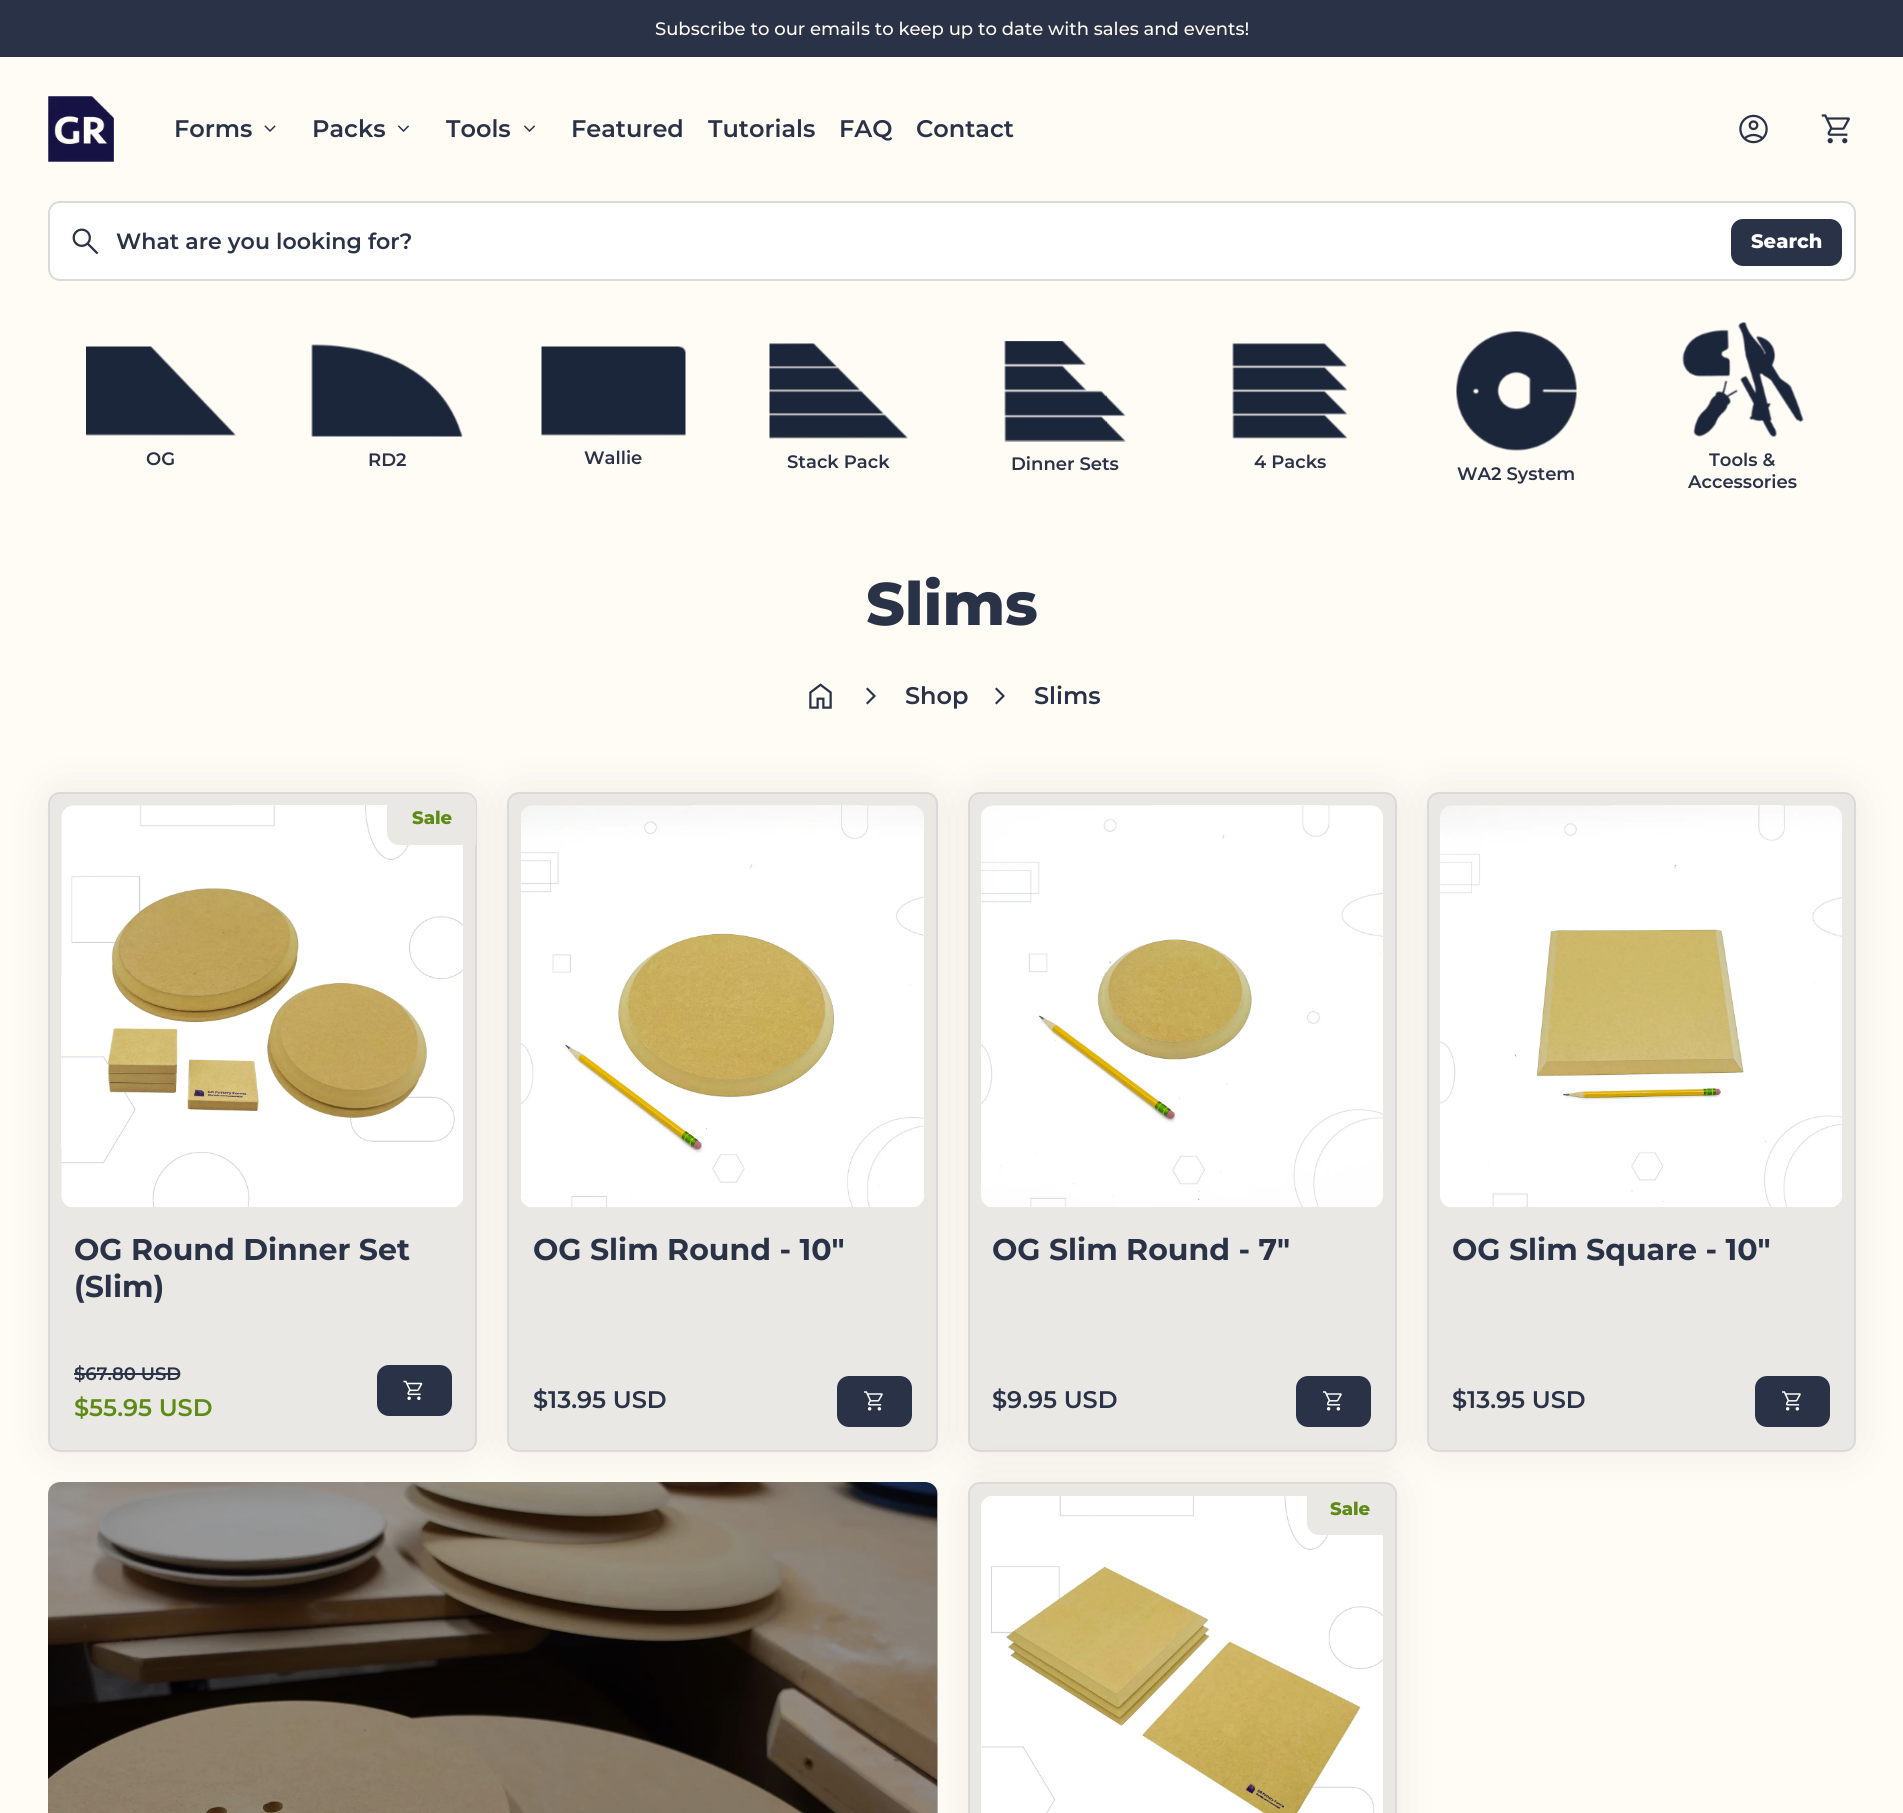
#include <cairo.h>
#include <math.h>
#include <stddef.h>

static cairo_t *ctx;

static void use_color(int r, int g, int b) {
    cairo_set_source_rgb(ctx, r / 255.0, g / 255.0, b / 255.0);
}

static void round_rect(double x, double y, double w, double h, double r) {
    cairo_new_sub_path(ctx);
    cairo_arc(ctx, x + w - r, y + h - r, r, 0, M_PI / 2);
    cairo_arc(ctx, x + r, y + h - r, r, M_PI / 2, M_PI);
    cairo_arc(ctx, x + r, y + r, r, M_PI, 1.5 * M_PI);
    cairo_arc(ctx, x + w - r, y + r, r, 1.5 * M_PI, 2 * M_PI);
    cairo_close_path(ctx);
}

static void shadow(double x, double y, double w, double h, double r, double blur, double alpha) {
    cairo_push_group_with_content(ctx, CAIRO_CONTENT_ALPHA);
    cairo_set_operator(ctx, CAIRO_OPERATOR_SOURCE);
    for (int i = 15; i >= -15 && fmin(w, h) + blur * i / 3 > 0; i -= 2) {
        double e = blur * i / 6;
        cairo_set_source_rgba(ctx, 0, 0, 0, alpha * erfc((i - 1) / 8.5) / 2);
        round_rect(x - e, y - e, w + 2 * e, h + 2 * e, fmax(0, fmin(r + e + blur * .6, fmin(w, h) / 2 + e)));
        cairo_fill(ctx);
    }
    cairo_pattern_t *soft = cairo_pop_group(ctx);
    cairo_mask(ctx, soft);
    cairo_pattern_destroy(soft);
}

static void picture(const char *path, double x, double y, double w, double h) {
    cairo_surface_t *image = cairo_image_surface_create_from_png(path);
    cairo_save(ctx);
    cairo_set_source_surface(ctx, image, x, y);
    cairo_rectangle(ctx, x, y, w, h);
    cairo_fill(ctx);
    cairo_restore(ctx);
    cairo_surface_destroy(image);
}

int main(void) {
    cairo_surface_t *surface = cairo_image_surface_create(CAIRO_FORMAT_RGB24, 1903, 1813);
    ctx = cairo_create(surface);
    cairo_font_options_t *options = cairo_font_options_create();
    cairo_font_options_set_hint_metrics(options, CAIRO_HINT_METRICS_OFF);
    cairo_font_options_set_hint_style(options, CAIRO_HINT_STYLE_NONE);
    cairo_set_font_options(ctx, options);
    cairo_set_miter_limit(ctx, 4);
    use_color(255, 251, 245);
    cairo_paint(ctx);
    use_color(42, 50, 71);
    cairo_rectangle(ctx, 0, 0, 1903, 57);
    cairo_fill(ctx);
    cairo_select_font_face(ctx, "Montserrat Medium", CAIRO_FONT_SLANT_NORMAL, CAIRO_FONT_WEIGHT_NORMAL);
    cairo_set_font_size(ctx, 18);
    use_color(255, 252, 245);
    cairo_move_to(ctx, 655, 35);
    cairo_show_text(ctx, "Subscribe to our emails to keep up to date with sales and events!");
    picture("img1.png", 48, 96, 66, 66);
    cairo_select_font_face(ctx, "Montserrat SemiBold", CAIRO_FONT_SLANT_NORMAL, CAIRO_FONT_WEIGHT_NORMAL);
    cairo_set_font_size(ctx, 24);
    use_color(42, 50, 71);
    cairo_move_to(ctx, 174, 137);
    cairo_show_text(ctx, "Forms");
    picture("img2.png", 264, 125, 12, 7);
    cairo_move_to(ctx, 312, 137);
    cairo_show_text(ctx, "Packs");
    picture("img3.png", 397, 125, 13, 7);
    cairo_move_to(ctx, 446, 137);
    cairo_show_text(ctx, "Tools");
    picture("img3.png", 523, 125, 13, 7);
    cairo_move_to(ctx, 571, 137);
    cairo_show_text(ctx, "Featured");
    cairo_move_to(ctx, 708, 137);
    cairo_show_text(ctx, "Tutorials");
    cairo_move_to(ctx, 839, 137);
    cairo_show_text(ctx, "FAQ");
    cairo_move_to(ctx, 916, 137);
    cairo_show_text(ctx, "Contact");
    picture("img4.png", 1739, 114, 29, 30);
    picture("img5.png", 1821, 114, 29, 30);
    use_color(255, 255, 255);
    round_rect(49, 202, 1806, 78, 11);
    cairo_fill_preserve(ctx);
    use_color(218, 218, 218);
    cairo_stroke(ctx);
    picture("img6.png", 72, 228, 27, 27);
    cairo_set_font_size(ctx, 22.1);
    use_color(42, 50, 71);
    cairo_move_to(ctx, 116, 249);
    cairo_show_text(ctx, "What are you looking for?");
    round_rect(1732, 220, 109, 45, 11);
    cairo_fill_preserve(ctx);
    cairo_stroke(ctx);
    cairo_select_font_face(ctx, "Montserrat ExtraBold", CAIRO_FONT_SLANT_NORMAL, CAIRO_FONT_WEIGHT_NORMAL);
    cairo_set_font_size(ctx, 19.5);
    use_color(255, 255, 255);
    cairo_move_to(ctx, 1751, 248);
    cairo_show_text(ctx, "Search");
    picture("img7.png", 86, 346, 150, 90);
    cairo_select_font_face(ctx, "Montserrat SemiBold", CAIRO_FONT_SLANT_NORMAL, CAIRO_FONT_WEIGHT_NORMAL);
    cairo_set_font_size(ctx, 18);
    use_color(42, 50, 71);
    cairo_move_to(ctx, 146, 465);
    cairo_show_text(ctx, "OG");
    picture("img8.png", 311, 344, 152, 93);
    cairo_move_to(ctx, 368, 466);
    cairo_show_text(ctx, "RD2");
    picture("img9.png", 541, 346, 145, 90);
    cairo_move_to(ctx, 584, 464);
    cairo_show_text(ctx, "Wallie");
    picture("img10.png", 769, 343, 139, 96);
    cairo_move_to(ctx, 787, 468);
    cairo_show_text(ctx, "Stack Pack");
    picture("img11.png", 1004, 341, 122, 101);
    cairo_move_to(ctx, 1011, 470);
    cairo_show_text(ctx, "Dinner Sets");
    picture("img12.png", 1232, 343, 116, 96);
    cairo_move_to(ctx, 1254, 468);
    cairo_show_text(ctx, "4 Packs");
    picture("img13.png", 1682, 322, 122, 115);
    cairo_move_to(ctx, 1709, 466);
    cairo_show_text(ctx, "Tools &");
    cairo_move_to(ctx, 1688, 488);
    cairo_show_text(ctx, "Accessories");
    picture("img14.png", 1456, 331, 121, 120);
    cairo_move_to(ctx, 1457, 480);
    cairo_show_text(ctx, "WA2 System");
    cairo_select_font_face(ctx, "Montserrat ExtraBold", CAIRO_FONT_SLANT_NORMAL, CAIRO_FONT_WEIGHT_NORMAL);
    cairo_set_font_size(ctx, 60);
    cairo_move_to(ctx, 866, 625);
    cairo_show_text(ctx, "Slims");
    picture("img15.png", 809, 683, 23, 26);
    cairo_new_path(ctx);
    cairo_move_to(ctx, 873, 696);
    cairo_line_to(ctx, 866, 689);
    cairo_line_to(ctx, 867.5, 687.5);
    cairo_line_to(ctx, 876, 696);
    cairo_line_to(ctx, 867.5, 704.5);
    cairo_line_to(ctx, 866, 703);
    cairo_close_path(ctx);
    cairo_fill(ctx);
    cairo_select_font_face(ctx, "Montserrat SemiBold", CAIRO_FONT_SLANT_NORMAL, CAIRO_FONT_WEIGHT_NORMAL);
    cairo_set_font_size(ctx, 24);
    cairo_move_to(ctx, 905, 704);
    cairo_show_text(ctx, "Shop");
    cairo_new_path(ctx);
    cairo_move_to(ctx, 1002, 696);
    cairo_line_to(ctx, 995, 689);
    cairo_line_to(ctx, 996.5, 687.5);
    cairo_line_to(ctx, 1005, 696);
    cairo_line_to(ctx, 996.5, 704.5);
    cairo_line_to(ctx, 995, 703);
    cairo_close_path(ctx);
    cairo_fill(ctx);
    cairo_move_to(ctx, 1034, 704);
    cairo_show_text(ctx, "Slims");
    picture("img22.png", 48, 1482, 890, 331);
    cairo_set_source_rgba(ctx, 0, 0, 0, 0.24);
    round_rect(48, 1482, 890, 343, 12);
    cairo_fill(ctx);
    use_color(52, 64, 84);
    shadow(48, 792, 429, 660, 12, 24, 0.08);
    use_color(234, 232, 228);
    round_rect(49, 793, 427, 658, 11);
    cairo_fill_preserve(ctx);
    use_color(218, 218, 218);
    cairo_stroke(ctx);
    picture("img16.png", 61, 805, 402, 402);
    use_color(234, 232, 228);
    cairo_new_path(ctx);
    cairo_move_to(ctx, 387, 794);
    cairo_line_to(ctx, 465, 794);
    cairo_curve_to(ctx, 471, 794, 476, 799, 476, 805);
    cairo_line_to(ctx, 476, 845);
    cairo_line_to(ctx, 399, 845);
    cairo_curve_to(ctx, 392.5, 845, 387, 839.5, 387, 833);
    cairo_close_path(ctx);
    cairo_fill(ctx);
    cairo_select_font_face(ctx, "Montserrat ExtraBold", CAIRO_FONT_SLANT_NORMAL, CAIRO_FONT_WEIGHT_NORMAL);
    cairo_set_font_size(ctx, 18);
    use_color(93, 139, 22);
    cairo_move_to(ctx, 412, 824);
    cairo_show_text(ctx, "Sale");
    cairo_select_font_face(ctx, "Montserrat", CAIRO_FONT_SLANT_NORMAL, CAIRO_FONT_WEIGHT_BOLD);
    cairo_set_font_size(ctx, 30);
    use_color(42, 50, 71);
    cairo_move_to(ctx, 74, 1260);
    cairo_show_text(ctx, "OG Round Dinner Set");
    cairo_move_to(ctx, 74, 1297);
    cairo_show_text(ctx, "(Slim)");
    cairo_select_font_face(ctx, "Montserrat SemiBold", CAIRO_FONT_SLANT_NORMAL, CAIRO_FONT_WEIGHT_NORMAL);
    cairo_set_font_size(ctx, 18);
    cairo_move_to(ctx, 74, 1380);
    cairo_show_text(ctx, "$67.80 USD");
    cairo_rectangle(ctx, 74, 1373, 106, 2);
    cairo_fill(ctx);
    cairo_set_font_size(ctx, 24);
    use_color(93, 139, 22);
    cairo_move_to(ctx, 74, 1416);
    cairo_show_text(ctx, "$55.95 USD");
    use_color(42, 50, 71);
    round_rect(378, 1366, 73, 49, 11);
    cairo_fill_preserve(ctx);
    cairo_stroke(ctx);
    picture("img17.png", 403, 1380, 20, 20);
    use_color(52, 64, 84);
    shadow(507, 792, 431, 660, 12, 24, 0.08);
    use_color(234, 232, 228);
    round_rect(508, 793, 429, 658, 11);
    cairo_fill_preserve(ctx);
    use_color(218, 218, 218);
    cairo_stroke(ctx);
    picture("img18.png", 521, 805, 403, 402);
    cairo_select_font_face(ctx, "Montserrat", CAIRO_FONT_SLANT_NORMAL, CAIRO_FONT_WEIGHT_BOLD);
    cairo_set_font_size(ctx, 30);
    use_color(42, 50, 71);
    cairo_move_to(ctx, 533, 1260);
    cairo_show_text(ctx, "OG Slim Round - 10\"");
    cairo_select_font_face(ctx, "Montserrat SemiBold", CAIRO_FONT_SLANT_NORMAL, CAIRO_FONT_WEIGHT_NORMAL);
    cairo_set_font_size(ctx, 24);
    cairo_move_to(ctx, 533, 1408);
    cairo_show_text(ctx, "$13.95 USD");
    round_rect(838, 1377, 73, 49, 11);
    cairo_fill_preserve(ctx);
    cairo_stroke(ctx);
    picture("img19.png", 864, 1391, 19, 20);
    use_color(52, 64, 84);
    shadow(968, 792, 429, 660, 12, 24, 0.08);
    use_color(234, 232, 228);
    round_rect(969, 793, 427, 658, 11);
    cairo_fill_preserve(ctx);
    use_color(218, 218, 218);
    cairo_stroke(ctx);
    picture("img20.png", 981, 805, 402, 402);
    cairo_select_font_face(ctx, "Montserrat", CAIRO_FONT_SLANT_NORMAL, CAIRO_FONT_WEIGHT_BOLD);
    cairo_set_font_size(ctx, 30);
    use_color(42, 50, 71);
    cairo_move_to(ctx, 992, 1260);
    cairo_show_text(ctx, "OG Slim Round - 7\"");
    cairo_select_font_face(ctx, "Montserrat SemiBold", CAIRO_FONT_SLANT_NORMAL, CAIRO_FONT_WEIGHT_NORMAL);
    cairo_set_font_size(ctx, 24);
    cairo_move_to(ctx, 992, 1408);
    cairo_show_text(ctx, "$9.95 USD");
    round_rect(1297, 1377, 73, 49, 11);
    cairo_fill_preserve(ctx);
    cairo_stroke(ctx);
    picture("img19.png", 1323, 1391, 19, 20);
    use_color(52, 64, 84);
    shadow(1427, 792, 429, 660, 12, 24, 0.08);
    use_color(234, 232, 228);
    round_rect(1428, 793, 427, 658, 11);
    cairo_fill_preserve(ctx);
    use_color(218, 218, 218);
    cairo_stroke(ctx);
    picture("img21.png", 1440, 805, 402, 402);
    cairo_select_font_face(ctx, "Montserrat", CAIRO_FONT_SLANT_NORMAL, CAIRO_FONT_WEIGHT_BOLD);
    cairo_set_font_size(ctx, 30);
    use_color(42, 50, 71);
    cairo_move_to(ctx, 1452, 1260);
    cairo_show_text(ctx, "OG Slim Square - 10\"");
    cairo_select_font_face(ctx, "Montserrat SemiBold", CAIRO_FONT_SLANT_NORMAL, CAIRO_FONT_WEIGHT_NORMAL);
    cairo_set_font_size(ctx, 24);
    cairo_move_to(ctx, 1452, 1408);
    cairo_show_text(ctx, "$13.95 USD");
    round_rect(1756, 1377, 73, 49, 11);
    cairo_fill_preserve(ctx);
    cairo_stroke(ctx);
    picture("img19.png", 1782, 1391, 19, 20);
    use_color(52, 64, 84);
    shadow(968, 1482, 429, 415, 12, 24, 0.08);
    use_color(234, 232, 228);
    round_rect(969, 1483, 427, 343, 11);
    cairo_fill_preserve(ctx);
    use_color(218, 218, 218);
    cairo_stroke(ctx);
    picture("img23.png", 981, 1496, 402, 317);
    use_color(234, 232, 228);
    cairo_new_path(ctx);
    cairo_move_to(ctx, 1307, 1484);
    cairo_line_to(ctx, 1384, 1484);
    cairo_curve_to(ctx, 1390, 1484, 1395, 1489, 1395, 1495);
    cairo_line_to(ctx, 1395, 1535);
    cairo_line_to(ctx, 1319, 1535);
    cairo_curve_to(ctx, 1312.5, 1535, 1307, 1529.5, 1307, 1523);
    cairo_close_path(ctx);
    cairo_fill(ctx);
    cairo_select_font_face(ctx, "Montserrat ExtraBold", CAIRO_FONT_SLANT_NORMAL, CAIRO_FONT_WEIGHT_NORMAL);
    cairo_set_font_size(ctx, 18);
    use_color(93, 139, 22);
    cairo_move_to(ctx, 1330, 1515);
    cairo_show_text(ctx, "Sale");
    cairo_surface_write_to_png(surface, "result.png");
    cairo_font_options_destroy(options);
    cairo_destroy(ctx);
    cairo_surface_destroy(surface);
    return 0;
}
